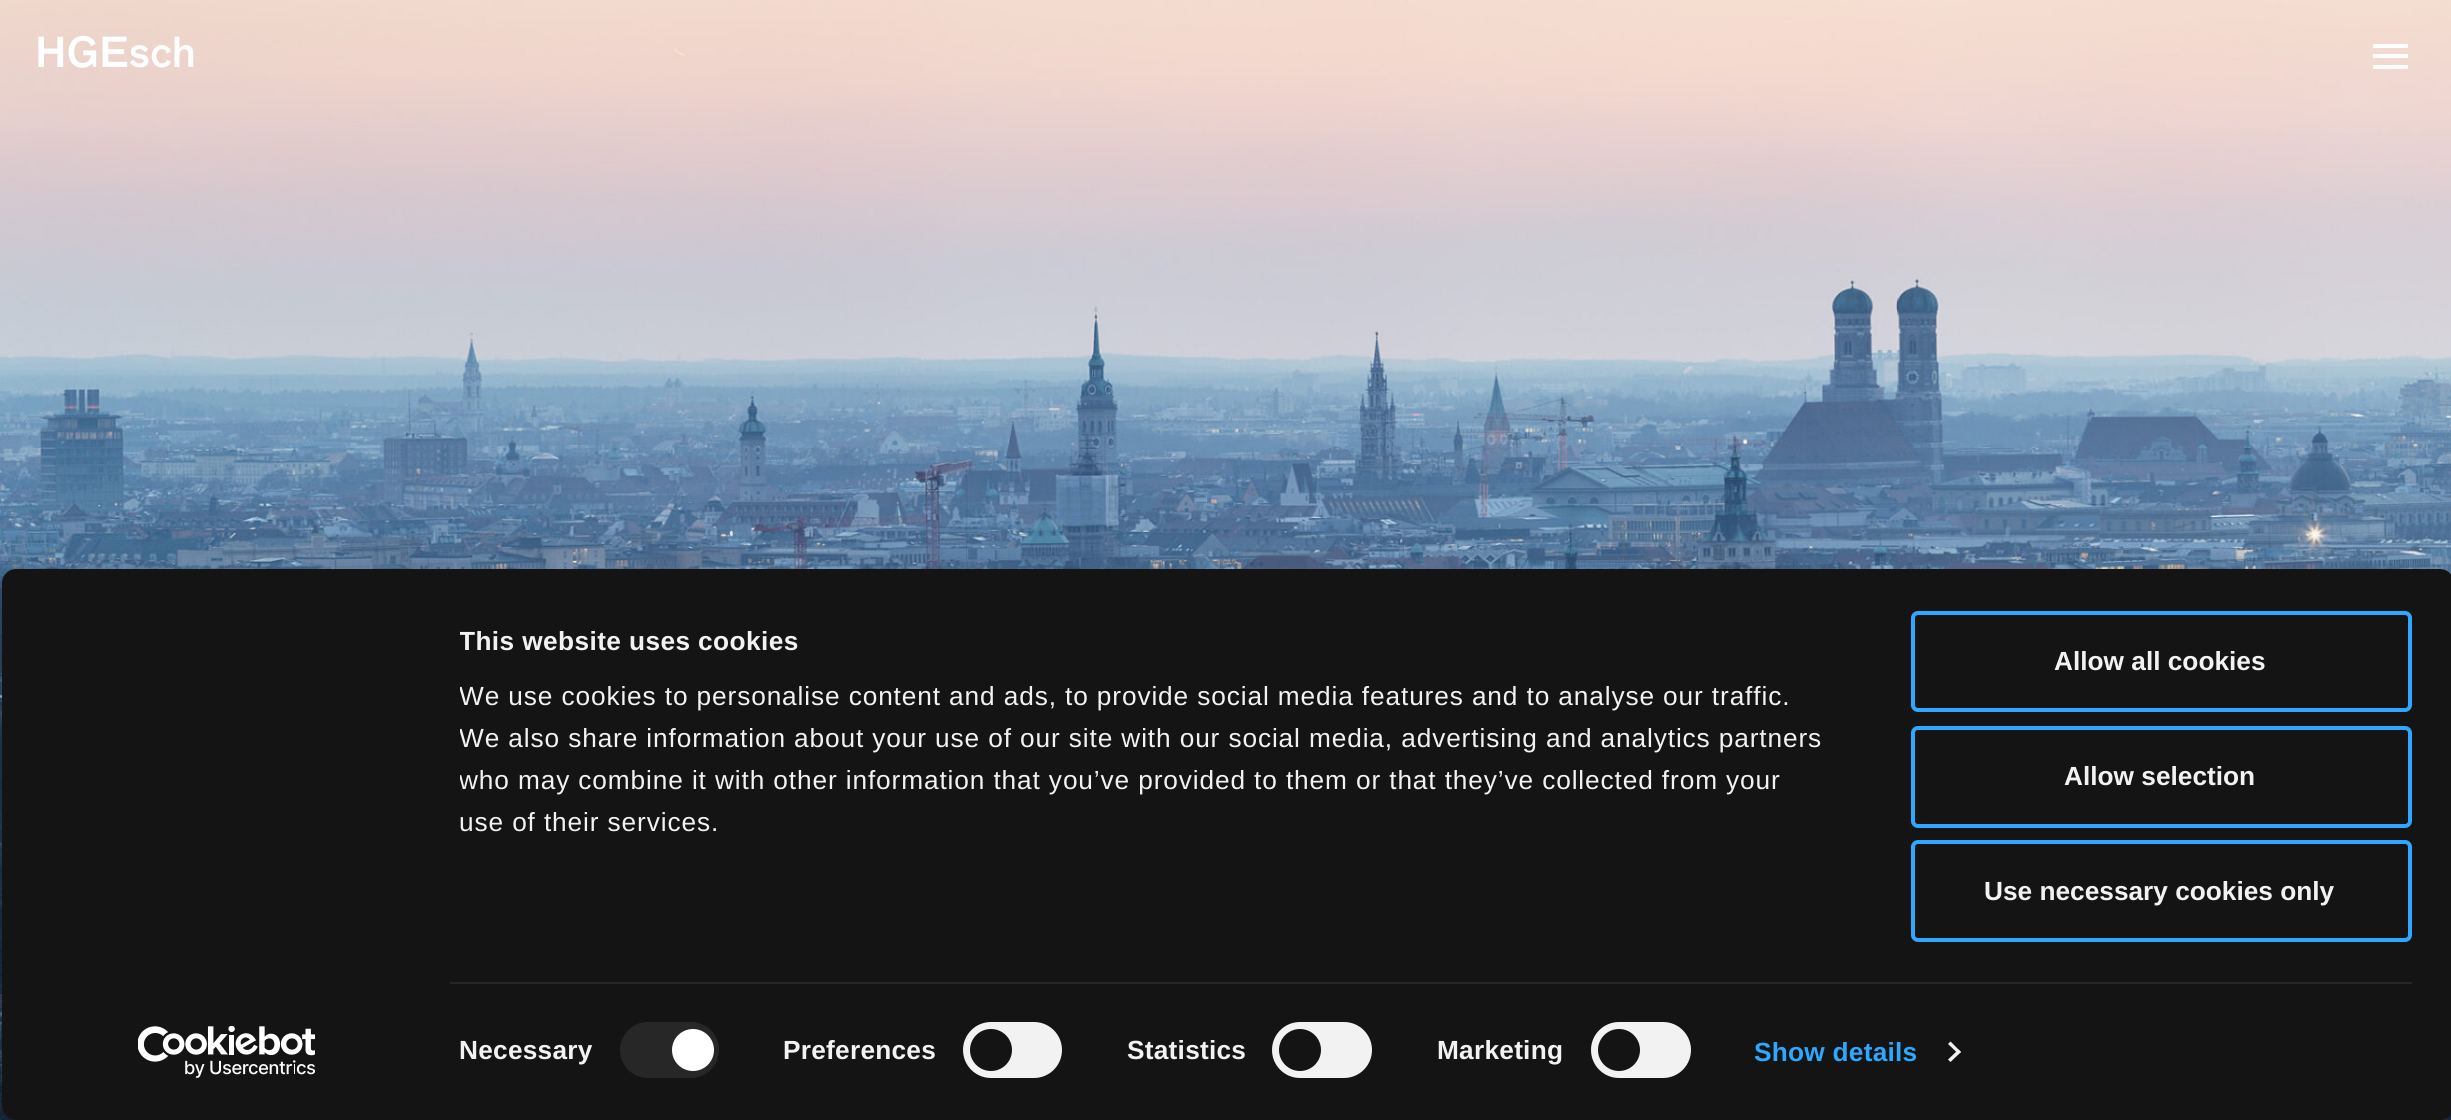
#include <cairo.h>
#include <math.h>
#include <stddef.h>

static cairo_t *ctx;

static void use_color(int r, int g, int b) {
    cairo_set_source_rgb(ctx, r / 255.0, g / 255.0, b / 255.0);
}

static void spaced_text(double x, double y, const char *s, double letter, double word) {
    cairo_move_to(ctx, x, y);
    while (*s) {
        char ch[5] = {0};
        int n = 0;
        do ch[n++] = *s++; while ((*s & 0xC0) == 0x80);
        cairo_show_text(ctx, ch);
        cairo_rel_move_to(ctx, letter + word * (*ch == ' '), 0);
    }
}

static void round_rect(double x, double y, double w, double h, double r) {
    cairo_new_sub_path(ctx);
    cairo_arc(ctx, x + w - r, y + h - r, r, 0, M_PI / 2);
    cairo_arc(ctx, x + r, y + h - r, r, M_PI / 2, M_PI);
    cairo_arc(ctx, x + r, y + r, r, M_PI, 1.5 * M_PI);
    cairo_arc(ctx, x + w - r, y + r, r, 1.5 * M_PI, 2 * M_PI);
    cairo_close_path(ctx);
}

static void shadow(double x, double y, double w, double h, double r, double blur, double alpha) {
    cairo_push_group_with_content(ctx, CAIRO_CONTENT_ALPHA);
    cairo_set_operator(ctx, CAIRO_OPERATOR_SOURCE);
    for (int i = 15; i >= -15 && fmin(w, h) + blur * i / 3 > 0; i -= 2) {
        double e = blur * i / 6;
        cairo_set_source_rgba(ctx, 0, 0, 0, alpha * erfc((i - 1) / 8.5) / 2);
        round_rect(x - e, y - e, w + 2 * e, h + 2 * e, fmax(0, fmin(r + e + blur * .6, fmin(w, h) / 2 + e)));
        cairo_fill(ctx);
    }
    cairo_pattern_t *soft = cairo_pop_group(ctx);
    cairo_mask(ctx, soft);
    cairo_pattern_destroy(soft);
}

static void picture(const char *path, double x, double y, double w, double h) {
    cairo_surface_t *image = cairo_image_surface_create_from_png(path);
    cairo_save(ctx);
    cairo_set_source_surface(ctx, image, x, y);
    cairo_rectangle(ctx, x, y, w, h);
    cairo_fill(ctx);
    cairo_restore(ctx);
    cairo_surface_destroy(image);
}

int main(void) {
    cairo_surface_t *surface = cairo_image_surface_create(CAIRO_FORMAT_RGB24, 2451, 1120);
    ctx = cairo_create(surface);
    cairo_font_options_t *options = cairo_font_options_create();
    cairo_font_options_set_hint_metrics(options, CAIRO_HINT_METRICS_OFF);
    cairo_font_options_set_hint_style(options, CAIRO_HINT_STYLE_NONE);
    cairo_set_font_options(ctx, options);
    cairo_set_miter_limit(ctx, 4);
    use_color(255, 255, 255);
    cairo_paint(ctx);
    picture("img1.png", 0, 0, 2451, 1120);
    cairo_select_font_face(ctx, "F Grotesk", CAIRO_FONT_SLANT_NORMAL, CAIRO_FONT_WEIGHT_NORMAL);
    cairo_set_font_size(ctx, 42);
    use_color(255, 255, 255);
    cairo_move_to(ctx, 35, 67);
    cairo_show_text(ctx, "HGEsch");
    cairo_rectangle(ctx, 2373, 65, 35, 4);
    cairo_fill(ctx);
    cairo_rectangle(ctx, 2373, 44, 35, 4);
    cairo_fill(ctx);
    cairo_rectangle(ctx, 2373, 54, 35, 4);
    cairo_fill(ctx);
    cairo_save(ctx);
    cairo_set_fill_rule(ctx, CAIRO_FILL_RULE_EVEN_ODD);
    cairo_new_path(ctx);
    cairo_move_to(ctx, 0, 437);
    cairo_line_to(ctx, 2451, 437);
    cairo_line_to(ctx, 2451, 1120);
    cairo_line_to(ctx, 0, 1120);
    cairo_close_path(ctx);
    cairo_move_to(ctx, 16, 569);
    cairo_line_to(ctx, 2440, 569);
    cairo_curve_to(ctx, 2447.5, 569, 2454, 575.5, 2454, 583);
    cairo_line_to(ctx, 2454, 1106);
    cairo_curve_to(ctx, 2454, 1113.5, 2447.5, 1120, 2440, 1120);
    cairo_line_to(ctx, 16, 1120);
    cairo_curve_to(ctx, 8.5, 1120, 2, 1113.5, 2, 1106);
    cairo_line_to(ctx, 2, 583);
    cairo_curve_to(ctx, 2, 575.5, 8.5, 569, 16, 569);
    cairo_close_path(ctx);
    cairo_clip(ctx);
    use_color(0, 0, 0);
    shadow(2, 621, 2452, 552, 14, 61, 0.3);
    cairo_restore(ctx);
    use_color(20, 20, 20);
    round_rect(2, 569, 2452, 551, 14);
    cairo_fill(ctx);
    cairo_save(ctx);
    cairo_rectangle(ctx, 460, 621, 1400, 310);
    cairo_clip(ctx);
    cairo_select_font_face(ctx, "Liberation Sans", CAIRO_FONT_SLANT_NORMAL, CAIRO_FONT_WEIGHT_BOLD);
    cairo_set_font_size(ctx, 26.25);
    use_color(242, 242, 242);
    spaced_text(459, 650, "This website uses cookies", 0.4, 0);
    cairo_select_font_face(ctx, "Liberation Sans", CAIRO_FONT_SLANT_NORMAL, CAIRO_FONT_WEIGHT_NORMAL);
    spaced_text(459, 705, "We use cookies to personalise content and ads, to provide social media features and to analyse our traffic.", 0.88, 0);
    spaced_text(459, 747, "We also share information about your use of our site with our social media, advertising and analytics partners", 0.88, 0);
    spaced_text(459, 789, "who may combine it with other information that you’ve provided to them or that they’ve collected from your", 0.88, 0);
    cairo_restore(ctx);
    cairo_select_font_face(ctx, "Liberation Sans", CAIRO_FONT_SLANT_NORMAL, CAIRO_FONT_WEIGHT_NORMAL);
    cairo_set_font_size(ctx, 26.25);
    use_color(242, 242, 242);
    spaced_text(459, 831, "use of their services.", 0.88, 0);
    use_color(39, 39, 39);
    cairo_rectangle(ctx, 450, 982, 1962, 2);
    cairo_fill(ctx);
    cairo_select_font_face(ctx, "Liberation Sans", CAIRO_FONT_SLANT_NORMAL, CAIRO_FONT_WEIGHT_BOLD);
    use_color(242, 242, 242);
    spaced_text(459, 1059, "Necessary", 0.25, 0);
    use_color(39, 39, 39);
    round_rect(620, 1022, 99, 56, 28);
    cairo_fill(ctx);
    use_color(255, 255, 255);
    cairo_arc(ctx, 693, 1050, 21, 0, 2 * M_PI);
    cairo_fill(ctx);
    use_color(242, 242, 242);
    spaced_text(783, 1059, "Preferences", 0.25, 0);
    round_rect(963, 1022, 99, 56, 28);
    cairo_fill(ctx);
    use_color(20, 20, 20);
    cairo_arc(ctx, 991, 1050, 21, 0, 2 * M_PI);
    cairo_fill(ctx);
    use_color(242, 242, 242);
    spaced_text(1127, 1059, "Statistics", 0.25, 0);
    round_rect(1272, 1022, 100, 56, 28);
    cairo_fill(ctx);
    use_color(20, 20, 20);
    cairo_arc(ctx, 1300, 1050, 21, 0, 2 * M_PI);
    cairo_fill(ctx);
    use_color(242, 242, 242);
    spaced_text(1437, 1059, "Marketing", 0.25, 0);
    round_rect(1591, 1022, 100, 56, 28);
    cairo_fill(ctx);
    use_color(20, 20, 20);
    cairo_arc(ctx, 1619, 1050, 21, 0, 2 * M_PI);
    cairo_fill(ctx);
    use_color(46, 167, 255);
    spaced_text(1754, 1061, "Show details", 0.25, 0);
    use_color(242, 242, 242);
    cairo_new_path(ctx);
    cairo_move_to(ctx, 1950.5, 1041.5);
    cairo_line_to(ctx, 1961, 1052);
    cairo_line_to(ctx, 1958.5, 1054);
    cairo_line_to(ctx, 1948, 1044);
    cairo_close_path(ctx);
    cairo_fill(ctx);
    cairo_new_path(ctx);
    cairo_move_to(ctx, 1958.5, 1049.5);
    cairo_line_to(ctx, 1961, 1052);
    cairo_line_to(ctx, 1950.5, 1062);
    cairo_line_to(ctx, 1948, 1059.5);
    cairo_close_path(ctx);
    cairo_fill(ctx);
    round_rect(1913, 613, 497, 97, 5);
    use_color(46, 167, 255);
    cairo_set_line_width(ctx, 4);
    cairo_stroke(ctx);
    use_color(242, 242, 242);
    cairo_move_to(ctx, 2054, 670);
    cairo_show_text(ctx, "Allow all cookies");
    round_rect(1913, 728, 497, 98, 5);
    use_color(46, 167, 255);
    cairo_stroke(ctx);
    use_color(242, 242, 242);
    cairo_move_to(ctx, 2064, 785);
    cairo_show_text(ctx, "Allow selection");
    round_rect(1913, 842, 497, 98, 5);
    use_color(46, 167, 255);
    cairo_stroke(ctx);
    use_color(242, 242, 242);
    cairo_move_to(ctx, 1984, 900);
    cairo_show_text(ctx, "Use necessary cookies only");
    picture("img2.png", 138, 1026, 177, 52);
    cairo_surface_write_to_png(surface, "result.png");
    cairo_font_options_destroy(options);
    cairo_destroy(ctx);
    cairo_surface_destroy(surface);
    return 0;
}
